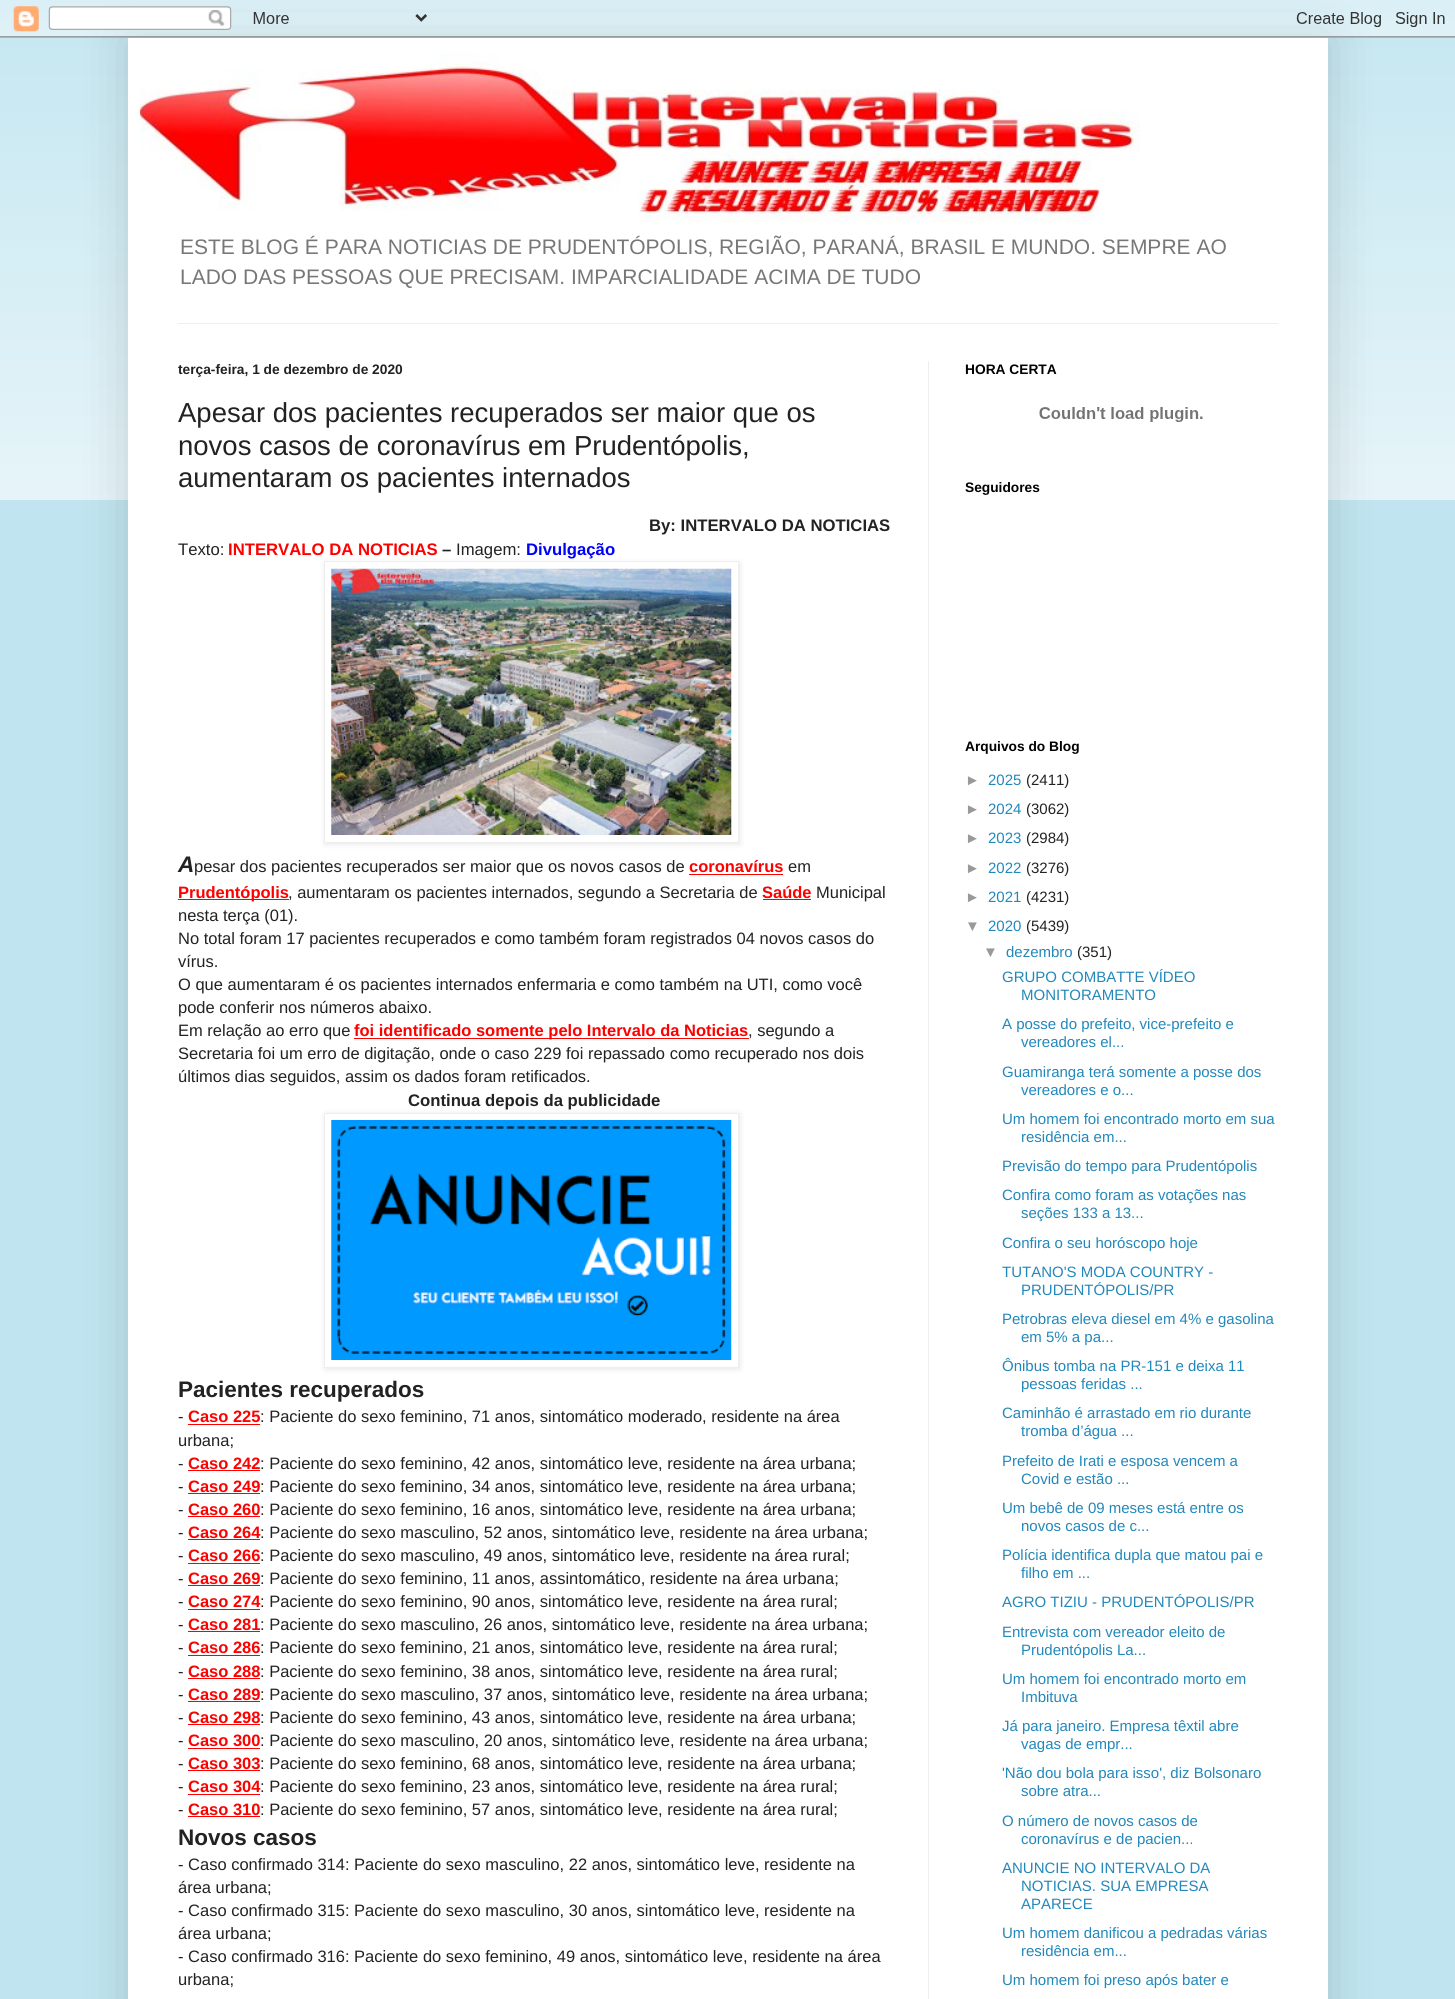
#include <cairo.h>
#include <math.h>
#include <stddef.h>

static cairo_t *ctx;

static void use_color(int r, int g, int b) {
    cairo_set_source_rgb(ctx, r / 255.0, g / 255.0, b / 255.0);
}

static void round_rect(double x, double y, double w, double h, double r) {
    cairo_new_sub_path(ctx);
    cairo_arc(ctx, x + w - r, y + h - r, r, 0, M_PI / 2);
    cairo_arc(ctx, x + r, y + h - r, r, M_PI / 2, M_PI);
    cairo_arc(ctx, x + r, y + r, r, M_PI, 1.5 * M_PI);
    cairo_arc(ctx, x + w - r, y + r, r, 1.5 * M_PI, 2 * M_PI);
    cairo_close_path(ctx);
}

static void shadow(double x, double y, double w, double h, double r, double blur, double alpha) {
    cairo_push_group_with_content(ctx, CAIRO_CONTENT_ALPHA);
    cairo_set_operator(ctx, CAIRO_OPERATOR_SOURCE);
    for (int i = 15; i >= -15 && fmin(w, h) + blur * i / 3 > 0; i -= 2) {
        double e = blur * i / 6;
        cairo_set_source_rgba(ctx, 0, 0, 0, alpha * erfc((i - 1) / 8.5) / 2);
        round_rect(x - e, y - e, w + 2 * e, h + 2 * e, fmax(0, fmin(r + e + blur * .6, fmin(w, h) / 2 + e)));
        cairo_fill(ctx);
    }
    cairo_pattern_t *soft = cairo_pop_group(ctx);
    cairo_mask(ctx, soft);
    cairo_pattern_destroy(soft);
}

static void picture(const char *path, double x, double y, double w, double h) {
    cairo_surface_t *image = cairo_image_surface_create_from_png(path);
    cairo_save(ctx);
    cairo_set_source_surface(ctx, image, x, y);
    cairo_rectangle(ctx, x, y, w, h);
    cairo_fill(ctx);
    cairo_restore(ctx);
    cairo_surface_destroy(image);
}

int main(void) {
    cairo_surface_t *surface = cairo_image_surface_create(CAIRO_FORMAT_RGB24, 1455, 1999);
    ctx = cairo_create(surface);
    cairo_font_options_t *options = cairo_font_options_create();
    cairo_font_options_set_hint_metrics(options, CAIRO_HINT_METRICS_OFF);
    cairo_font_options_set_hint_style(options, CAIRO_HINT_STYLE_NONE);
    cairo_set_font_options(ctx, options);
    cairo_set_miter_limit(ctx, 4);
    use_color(193, 229, 240);
    cairo_paint(ctx);
    picture("img2.png", 0, 13, 1455, 487);
    use_color(0, 0, 0);
    shadow(128, 38, 1200, 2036, 0, 25, 0.15);
    picture("img1.png", 0, 0, 1455, 38);
    use_color(255, 255, 255);
    cairo_rectangle(ctx, 128, 38, 1200, 1961);
    cairo_fill(ctx);
    picture("img3.png", 140, 50, 1000, 173);
    cairo_select_font_face(ctx, "Liberation Sans", CAIRO_FONT_SLANT_NORMAL, CAIRO_FONT_WEIGHT_NORMAL);
    cairo_set_font_size(ctx, 21);
    use_color(119, 119, 119);
    cairo_move_to(ctx, 180, 254);
    cairo_show_text(ctx, "ESTE BLOG É PARA NOTICIAS DE PRUDENTÓPOLIS, REGIÃO, PARANÁ, BRASIL E MUNDO. SEMPRE AO");
    cairo_move_to(ctx, 180, 284);
    cairo_show_text(ctx, "LADO DAS PESSOAS QUE PRECISAM. IMPARCIALIDADE ACIMA DE TUDO");
    use_color(238, 238, 238);
    cairo_rectangle(ctx, 178, 323, 1100, 1);
    cairo_fill(ctx);
    cairo_rectangle(ctx, 928, 361, 1, 1638);
    cairo_fill(ctx);
    cairo_select_font_face(ctx, "Liberation Sans", CAIRO_FONT_SLANT_NORMAL, CAIRO_FONT_WEIGHT_BOLD);
    cairo_set_font_size(ctx, 13.75);
    use_color(34, 34, 34);
    cairo_move_to(ctx, 178, 374);
    cairo_show_text(ctx, "terça-feira, 1 de dezembro de 2020");
    cairo_select_font_face(ctx, "Liberation Sans", CAIRO_FONT_SLANT_NORMAL, CAIRO_FONT_WEIGHT_NORMAL);
    cairo_set_font_size(ctx, 27.5);
    cairo_move_to(ctx, 178, 422);
    cairo_show_text(ctx, "Apesar dos pacientes recuperados ser maior que os");
    cairo_move_to(ctx, 178, 455);
    cairo_show_text(ctx, "novos casos de coronavírus em Prudentópolis,");
    cairo_move_to(ctx, 178, 487);
    cairo_show_text(ctx, "aumentaram os pacientes internados");
    cairo_select_font_face(ctx, "Liberation Sans", CAIRO_FONT_SLANT_NORMAL, CAIRO_FONT_WEIGHT_BOLD);
    cairo_set_font_size(ctx, 16.7);
    cairo_move_to(ctx, 649, 531);
    cairo_show_text(ctx, "By: INTERVALO DA NOTICIAS");
    cairo_select_font_face(ctx, "Liberation Sans", CAIRO_FONT_SLANT_NORMAL, CAIRO_FONT_WEIGHT_NORMAL);
    cairo_move_to(ctx, 178, 555);
    cairo_show_text(ctx, "Texto:");
    cairo_select_font_face(ctx, "Liberation Sans", CAIRO_FONT_SLANT_NORMAL, CAIRO_FONT_WEIGHT_BOLD);
    use_color(255, 0, 0);
    cairo_move_to(ctx, 228, 555);
    cairo_show_text(ctx, "INTERVALO DA NOTICIAS");
    use_color(34, 34, 34);
    cairo_move_to(ctx, 442, 555);
    cairo_show_text(ctx, "–");
    cairo_select_font_face(ctx, "Liberation Sans", CAIRO_FONT_SLANT_NORMAL, CAIRO_FONT_WEIGHT_NORMAL);
    cairo_move_to(ctx, 456, 555);
    cairo_show_text(ctx, "Imagem:");
    cairo_select_font_face(ctx, "Liberation Sans", CAIRO_FONT_SLANT_NORMAL, CAIRO_FONT_WEIGHT_BOLD);
    use_color(0, 0, 255);
    cairo_move_to(ctx, 526, 555);
    cairo_show_text(ctx, "Divulgação");
    use_color(0, 0, 0);
    shadow(325, 563, 415, 281, 0, 3, 0.1);
    use_color(255, 255, 255);
    cairo_rectangle(ctx, 324.5, 561.5, 414, 281);
    cairo_fill_preserve(ctx);
    use_color(238, 238, 238);
    cairo_set_line_width(ctx, 1);
    cairo_stroke(ctx);
    picture("img4.png", 331, 568, 401, 267);
    cairo_select_font_face(ctx, "Liberation Sans", CAIRO_FONT_SLANT_ITALIC, CAIRO_FONT_WEIGHT_BOLD);
    cairo_set_font_size(ctx, 22.5);
    use_color(34, 34, 34);
    cairo_move_to(ctx, 178, 872);
    cairo_show_text(ctx, "A");
    cairo_select_font_face(ctx, "Liberation Sans", CAIRO_FONT_SLANT_NORMAL, CAIRO_FONT_WEIGHT_NORMAL);
    cairo_set_font_size(ctx, 16.5);
    cairo_move_to(ctx, 194, 872);
    cairo_show_text(ctx, "pesar dos pacientes recuperados ser maior que os novos casos de");
    cairo_select_font_face(ctx, "Liberation Sans", CAIRO_FONT_SLANT_NORMAL, CAIRO_FONT_WEIGHT_BOLD);
    use_color(255, 0, 0);
    cairo_move_to(ctx, 689, 872);
    cairo_show_text(ctx, "coronavírus");
    cairo_rectangle(ctx, 689, 874, 94, 1);
    cairo_fill(ctx);
    cairo_select_font_face(ctx, "Liberation Sans", CAIRO_FONT_SLANT_NORMAL, CAIRO_FONT_WEIGHT_NORMAL);
    use_color(34, 34, 34);
    cairo_move_to(ctx, 788, 872);
    cairo_show_text(ctx, "em");
    use_color(255, 0, 0);
    cairo_rectangle(ctx, 178, 899, 111, 1);
    cairo_fill(ctx);
    cairo_select_font_face(ctx, "Liberation Sans", CAIRO_FONT_SLANT_NORMAL, CAIRO_FONT_WEIGHT_BOLD);
    cairo_move_to(ctx, 178, 898);
    cairo_show_text(ctx, "Prudentópolis");
    cairo_select_font_face(ctx, "Liberation Sans", CAIRO_FONT_SLANT_NORMAL, CAIRO_FONT_WEIGHT_NORMAL);
    use_color(34, 34, 34);
    cairo_move_to(ctx, 288, 898);
    cairo_show_text(ctx, ", aumentaram os pacientes internados, segundo a Secretaria de");
    cairo_select_font_face(ctx, "Liberation Sans", CAIRO_FONT_SLANT_NORMAL, CAIRO_FONT_WEIGHT_BOLD);
    use_color(255, 0, 0);
    cairo_move_to(ctx, 762, 898);
    cairo_show_text(ctx, "Saúde");
    cairo_rectangle(ctx, 763, 899, 48, 1);
    cairo_fill(ctx);
    cairo_select_font_face(ctx, "Liberation Sans", CAIRO_FONT_SLANT_NORMAL, CAIRO_FONT_WEIGHT_NORMAL);
    use_color(34, 34, 34);
    cairo_move_to(ctx, 816, 898);
    cairo_show_text(ctx, "Municipal");
    cairo_move_to(ctx, 178, 921);
    cairo_show_text(ctx, "nesta terça (01).");
    cairo_move_to(ctx, 178, 944);
    cairo_show_text(ctx, "No total foram 17 pacientes recuperados e como também foram registrados 04 novos casos do");
    cairo_move_to(ctx, 178, 967);
    cairo_show_text(ctx, "vírus.");
    cairo_move_to(ctx, 178, 990);
    cairo_show_text(ctx, "O que aumentaram é os pacientes internados enfermaria e como também na UTI, como você");
    cairo_move_to(ctx, 178, 1013);
    cairo_show_text(ctx, "pode conferir nos números abaixo.");
    cairo_move_to(ctx, 178, 1036);
    cairo_show_text(ctx, "Em relação ao erro que");
    use_color(255, 0, 0);
    cairo_rectangle(ctx, 354, 1038, 395, 1);
    cairo_fill(ctx);
    cairo_select_font_face(ctx, "Liberation Sans", CAIRO_FONT_SLANT_NORMAL, CAIRO_FONT_WEIGHT_BOLD);
    cairo_move_to(ctx, 354, 1036);
    cairo_show_text(ctx, "foi identificado somente pelo Intervalo da Noticias");
    cairo_select_font_face(ctx, "Liberation Sans", CAIRO_FONT_SLANT_NORMAL, CAIRO_FONT_WEIGHT_NORMAL);
    use_color(34, 34, 34);
    cairo_move_to(ctx, 748, 1036);
    cairo_show_text(ctx, ", segundo a");
    cairo_move_to(ctx, 178, 1059);
    cairo_show_text(ctx, "Secretaria foi um erro de digitação, onde o caso 229 foi repassado como recuperado nos dois");
    cairo_move_to(ctx, 178, 1082);
    cairo_show_text(ctx, "últimos dias seguidos, assim os dados foram retificados.");
    cairo_select_font_face(ctx, "Liberation Sans", CAIRO_FONT_SLANT_NORMAL, CAIRO_FONT_WEIGHT_BOLD);
    cairo_set_font_size(ctx, 16.7);
    cairo_move_to(ctx, 408, 1106);
    cairo_show_text(ctx, "Continua depois da publicidade");
    use_color(0, 0, 0);
    shadow(325, 1114, 415, 255, 0, 3, 0.1);
    use_color(255, 255, 255);
    cairo_rectangle(ctx, 324.5, 1113.5, 414, 254);
    cairo_fill_preserve(ctx);
    use_color(238, 238, 238);
    cairo_stroke(ctx);
    picture("img5.png", 331, 1120, 401, 240);
    cairo_set_font_size(ctx, 22.5);
    use_color(34, 34, 34);
    cairo_move_to(ctx, 178, 1397);
    cairo_show_text(ctx, "Pacientes recuperados");
    cairo_select_font_face(ctx, "Liberation Sans", CAIRO_FONT_SLANT_NORMAL, CAIRO_FONT_WEIGHT_NORMAL);
    cairo_set_font_size(ctx, 16.5);
    cairo_move_to(ctx, 178, 1422);
    cairo_show_text(ctx, "-");
    cairo_select_font_face(ctx, "Liberation Sans", CAIRO_FONT_SLANT_NORMAL, CAIRO_FONT_WEIGHT_BOLD);
    use_color(255, 0, 0);
    cairo_move_to(ctx, 188, 1422);
    cairo_show_text(ctx, "Caso 225");
    cairo_rectangle(ctx, 188, 1424, 72, 1);
    cairo_fill(ctx);
    cairo_select_font_face(ctx, "Liberation Sans", CAIRO_FONT_SLANT_NORMAL, CAIRO_FONT_WEIGHT_NORMAL);
    use_color(34, 34, 34);
    cairo_move_to(ctx, 260, 1422);
    cairo_show_text(ctx, ": Paciente do sexo feminino, 71 anos, sintomático moderado, residente na área");
    cairo_move_to(ctx, 178, 1446);
    cairo_show_text(ctx, "urbana;");
    cairo_move_to(ctx, 178, 1469);
    cairo_show_text(ctx, "-");
    cairo_select_font_face(ctx, "Liberation Sans", CAIRO_FONT_SLANT_NORMAL, CAIRO_FONT_WEIGHT_BOLD);
    use_color(255, 0, 0);
    cairo_move_to(ctx, 188, 1469);
    cairo_show_text(ctx, "Caso 242");
    cairo_rectangle(ctx, 188, 1470, 72, 1);
    cairo_fill(ctx);
    cairo_select_font_face(ctx, "Liberation Sans", CAIRO_FONT_SLANT_NORMAL, CAIRO_FONT_WEIGHT_NORMAL);
    use_color(34, 34, 34);
    cairo_move_to(ctx, 260, 1469);
    cairo_show_text(ctx, ": Paciente do sexo feminino, 42 anos, sintomático leve, residente na área urbana;");
    cairo_move_to(ctx, 178, 1492);
    cairo_show_text(ctx, "-");
    cairo_select_font_face(ctx, "Liberation Sans", CAIRO_FONT_SLANT_NORMAL, CAIRO_FONT_WEIGHT_BOLD);
    use_color(255, 0, 0);
    cairo_move_to(ctx, 188, 1492);
    cairo_show_text(ctx, "Caso 249");
    cairo_rectangle(ctx, 188, 1493, 72, 1);
    cairo_fill(ctx);
    cairo_select_font_face(ctx, "Liberation Sans", CAIRO_FONT_SLANT_NORMAL, CAIRO_FONT_WEIGHT_NORMAL);
    use_color(34, 34, 34);
    cairo_move_to(ctx, 260, 1492);
    cairo_show_text(ctx, ": Paciente do sexo feminino, 34 anos, sintomático leve, residente na área urbana;");
    cairo_move_to(ctx, 178, 1515);
    cairo_show_text(ctx, "-");
    cairo_select_font_face(ctx, "Liberation Sans", CAIRO_FONT_SLANT_NORMAL, CAIRO_FONT_WEIGHT_BOLD);
    use_color(255, 0, 0);
    cairo_move_to(ctx, 188, 1515);
    cairo_show_text(ctx, "Caso 260");
    cairo_rectangle(ctx, 188, 1516, 72, 1);
    cairo_fill(ctx);
    cairo_select_font_face(ctx, "Liberation Sans", CAIRO_FONT_SLANT_NORMAL, CAIRO_FONT_WEIGHT_NORMAL);
    use_color(34, 34, 34);
    cairo_move_to(ctx, 260, 1515);
    cairo_show_text(ctx, ": Paciente do sexo feminino, 16 anos, sintomático leve, residente na área urbana;");
    cairo_move_to(ctx, 178, 1538);
    cairo_show_text(ctx, "-");
    cairo_select_font_face(ctx, "Liberation Sans", CAIRO_FONT_SLANT_NORMAL, CAIRO_FONT_WEIGHT_BOLD);
    use_color(255, 0, 0);
    cairo_move_to(ctx, 188, 1538);
    cairo_show_text(ctx, "Caso 264");
    cairo_rectangle(ctx, 188, 1539, 72, 1);
    cairo_fill(ctx);
    cairo_select_font_face(ctx, "Liberation Sans", CAIRO_FONT_SLANT_NORMAL, CAIRO_FONT_WEIGHT_NORMAL);
    use_color(34, 34, 34);
    cairo_move_to(ctx, 260, 1538);
    cairo_show_text(ctx, ": Paciente do sexo masculino, 52 anos, sintomático leve, residente na área urbana;");
    cairo_move_to(ctx, 178, 1561);
    cairo_show_text(ctx, "-");
    cairo_select_font_face(ctx, "Liberation Sans", CAIRO_FONT_SLANT_NORMAL, CAIRO_FONT_WEIGHT_BOLD);
    use_color(255, 0, 0);
    cairo_move_to(ctx, 188, 1561);
    cairo_show_text(ctx, "Caso 266");
    cairo_rectangle(ctx, 188, 1563, 72, 1);
    cairo_fill(ctx);
    cairo_select_font_face(ctx, "Liberation Sans", CAIRO_FONT_SLANT_NORMAL, CAIRO_FONT_WEIGHT_NORMAL);
    use_color(34, 34, 34);
    cairo_move_to(ctx, 260, 1561);
    cairo_show_text(ctx, ": Paciente do sexo masculino, 49 anos, sintomático leve, residente na área rural;");
    cairo_move_to(ctx, 178, 1584);
    cairo_show_text(ctx, "-");
    cairo_select_font_face(ctx, "Liberation Sans", CAIRO_FONT_SLANT_NORMAL, CAIRO_FONT_WEIGHT_BOLD);
    use_color(255, 0, 0);
    cairo_move_to(ctx, 188, 1584);
    cairo_show_text(ctx, "Caso 269");
    cairo_rectangle(ctx, 188, 1585, 72, 1);
    cairo_fill(ctx);
    cairo_select_font_face(ctx, "Liberation Sans", CAIRO_FONT_SLANT_NORMAL, CAIRO_FONT_WEIGHT_NORMAL);
    use_color(34, 34, 34);
    cairo_move_to(ctx, 260, 1584);
    cairo_show_text(ctx, ": Paciente do sexo feminino, 11 anos, assintomático, residente na área urbana;");
    cairo_move_to(ctx, 178, 1607);
    cairo_show_text(ctx, "-");
    cairo_select_font_face(ctx, "Liberation Sans", CAIRO_FONT_SLANT_NORMAL, CAIRO_FONT_WEIGHT_BOLD);
    use_color(255, 0, 0);
    cairo_move_to(ctx, 188, 1607);
    cairo_show_text(ctx, "Caso 274");
    cairo_rectangle(ctx, 188, 1609, 72, 1);
    cairo_fill(ctx);
    cairo_select_font_face(ctx, "Liberation Sans", CAIRO_FONT_SLANT_NORMAL, CAIRO_FONT_WEIGHT_NORMAL);
    use_color(34, 34, 34);
    cairo_move_to(ctx, 260, 1607);
    cairo_show_text(ctx, ": Paciente do sexo feminino, 90 anos, sintomático leve, residente na área rural;");
    cairo_move_to(ctx, 178, 1630);
    cairo_show_text(ctx, "-");
    cairo_select_font_face(ctx, "Liberation Sans", CAIRO_FONT_SLANT_NORMAL, CAIRO_FONT_WEIGHT_BOLD);
    use_color(255, 0, 0);
    cairo_move_to(ctx, 188, 1630);
    cairo_show_text(ctx, "Caso 281");
    cairo_rectangle(ctx, 188, 1631, 72, 1);
    cairo_fill(ctx);
    cairo_select_font_face(ctx, "Liberation Sans", CAIRO_FONT_SLANT_NORMAL, CAIRO_FONT_WEIGHT_NORMAL);
    use_color(34, 34, 34);
    cairo_move_to(ctx, 260, 1630);
    cairo_show_text(ctx, ": Paciente do sexo masculino, 26 anos, sintomático leve, residente na área urbana;");
    cairo_move_to(ctx, 178, 1653);
    cairo_show_text(ctx, "-");
    cairo_select_font_face(ctx, "Liberation Sans", CAIRO_FONT_SLANT_NORMAL, CAIRO_FONT_WEIGHT_BOLD);
    use_color(255, 0, 0);
    cairo_move_to(ctx, 188, 1653);
    cairo_show_text(ctx, "Caso 286");
    cairo_rectangle(ctx, 188, 1655, 72, 1);
    cairo_fill(ctx);
    cairo_select_font_face(ctx, "Liberation Sans", CAIRO_FONT_SLANT_NORMAL, CAIRO_FONT_WEIGHT_NORMAL);
    use_color(34, 34, 34);
    cairo_move_to(ctx, 260, 1653);
    cairo_show_text(ctx, ": Paciente do sexo feminino, 21 anos, sintomático leve, residente na área rural;");
    cairo_move_to(ctx, 178, 1677);
    cairo_show_text(ctx, "-");
    cairo_select_font_face(ctx, "Liberation Sans", CAIRO_FONT_SLANT_NORMAL, CAIRO_FONT_WEIGHT_BOLD);
    use_color(255, 0, 0);
    cairo_move_to(ctx, 188, 1677);
    cairo_show_text(ctx, "Caso 288");
    cairo_rectangle(ctx, 188, 1678, 72, 1);
    cairo_fill(ctx);
    cairo_select_font_face(ctx, "Liberation Sans", CAIRO_FONT_SLANT_NORMAL, CAIRO_FONT_WEIGHT_NORMAL);
    use_color(34, 34, 34);
    cairo_move_to(ctx, 260, 1677);
    cairo_show_text(ctx, ": Paciente do sexo feminino, 38 anos, sintomático leve, residente na área rural;");
    cairo_move_to(ctx, 178, 1700);
    cairo_show_text(ctx, "-");
    cairo_select_font_face(ctx, "Liberation Sans", CAIRO_FONT_SLANT_NORMAL, CAIRO_FONT_WEIGHT_BOLD);
    use_color(255, 0, 0);
    cairo_move_to(ctx, 188, 1700);
    cairo_show_text(ctx, "Caso 289");
    cairo_rectangle(ctx, 188, 1701, 72, 1);
    cairo_fill(ctx);
    cairo_select_font_face(ctx, "Liberation Sans", CAIRO_FONT_SLANT_NORMAL, CAIRO_FONT_WEIGHT_NORMAL);
    use_color(34, 34, 34);
    cairo_move_to(ctx, 260, 1700);
    cairo_show_text(ctx, ": Paciente do sexo masculino, 37 anos, sintomático leve, residente na área urbana;");
    cairo_move_to(ctx, 178, 1723);
    cairo_show_text(ctx, "-");
    cairo_select_font_face(ctx, "Liberation Sans", CAIRO_FONT_SLANT_NORMAL, CAIRO_FONT_WEIGHT_BOLD);
    use_color(255, 0, 0);
    cairo_move_to(ctx, 188, 1723);
    cairo_show_text(ctx, "Caso 298");
    cairo_rectangle(ctx, 188, 1724, 72, 1);
    cairo_fill(ctx);
    cairo_select_font_face(ctx, "Liberation Sans", CAIRO_FONT_SLANT_NORMAL, CAIRO_FONT_WEIGHT_NORMAL);
    use_color(34, 34, 34);
    cairo_move_to(ctx, 260, 1723);
    cairo_show_text(ctx, ": Paciente do sexo feminino, 43 anos, sintomático leve, residente na área urbana;");
    cairo_move_to(ctx, 178, 1746);
    cairo_show_text(ctx, "-");
    cairo_select_font_face(ctx, "Liberation Sans", CAIRO_FONT_SLANT_NORMAL, CAIRO_FONT_WEIGHT_BOLD);
    use_color(255, 0, 0);
    cairo_move_to(ctx, 188, 1746);
    cairo_show_text(ctx, "Caso 300");
    cairo_rectangle(ctx, 188, 1748, 72, 1);
    cairo_fill(ctx);
    cairo_select_font_face(ctx, "Liberation Sans", CAIRO_FONT_SLANT_NORMAL, CAIRO_FONT_WEIGHT_NORMAL);
    use_color(34, 34, 34);
    cairo_move_to(ctx, 260, 1746);
    cairo_show_text(ctx, ": Paciente do sexo masculino, 20 anos, sintomático leve, residente na área urbana;");
    cairo_move_to(ctx, 178, 1769);
    cairo_show_text(ctx, "-");
    cairo_select_font_face(ctx, "Liberation Sans", CAIRO_FONT_SLANT_NORMAL, CAIRO_FONT_WEIGHT_BOLD);
    use_color(255, 0, 0);
    cairo_move_to(ctx, 188, 1769);
    cairo_show_text(ctx, "Caso 303");
    cairo_rectangle(ctx, 188, 1770, 72, 1);
    cairo_fill(ctx);
    cairo_select_font_face(ctx, "Liberation Sans", CAIRO_FONT_SLANT_NORMAL, CAIRO_FONT_WEIGHT_NORMAL);
    use_color(34, 34, 34);
    cairo_move_to(ctx, 260, 1769);
    cairo_show_text(ctx, ": Paciente do sexo feminino, 68 anos, sintomático leve, residente na área urbana;");
    cairo_move_to(ctx, 178, 1792);
    cairo_show_text(ctx, "-");
    cairo_select_font_face(ctx, "Liberation Sans", CAIRO_FONT_SLANT_NORMAL, CAIRO_FONT_WEIGHT_BOLD);
    use_color(255, 0, 0);
    cairo_move_to(ctx, 188, 1792);
    cairo_show_text(ctx, "Caso 304");
    cairo_rectangle(ctx, 188, 1794, 72, 1);
    cairo_fill(ctx);
    cairo_select_font_face(ctx, "Liberation Sans", CAIRO_FONT_SLANT_NORMAL, CAIRO_FONT_WEIGHT_NORMAL);
    use_color(34, 34, 34);
    cairo_move_to(ctx, 260, 1792);
    cairo_show_text(ctx, ": Paciente do sexo feminino, 23 anos, sintomático leve, residente na área rural;");
    cairo_move_to(ctx, 178, 1815);
    cairo_show_text(ctx, "-");
    cairo_select_font_face(ctx, "Liberation Sans", CAIRO_FONT_SLANT_NORMAL, CAIRO_FONT_WEIGHT_BOLD);
    use_color(255, 0, 0);
    cairo_move_to(ctx, 188, 1815);
    cairo_show_text(ctx, "Caso 310");
    cairo_rectangle(ctx, 188, 1816, 72, 1);
    cairo_fill(ctx);
    cairo_select_font_face(ctx, "Liberation Sans", CAIRO_FONT_SLANT_NORMAL, CAIRO_FONT_WEIGHT_NORMAL);
    use_color(34, 34, 34);
    cairo_move_to(ctx, 260, 1815);
    cairo_show_text(ctx, ": Paciente do sexo feminino, 57 anos, sintomático leve, residente na área rural;");
    cairo_select_font_face(ctx, "Liberation Sans", CAIRO_FONT_SLANT_NORMAL, CAIRO_FONT_WEIGHT_BOLD);
    cairo_set_font_size(ctx, 22.5);
    cairo_move_to(ctx, 178, 1845);
    cairo_show_text(ctx, "Novos casos");
    cairo_select_font_face(ctx, "Liberation Sans", CAIRO_FONT_SLANT_NORMAL, CAIRO_FONT_WEIGHT_NORMAL);
    cairo_set_font_size(ctx, 16.5);
    cairo_move_to(ctx, 178, 1870);
    cairo_show_text(ctx, "- Caso confirmado 314: Paciente do sexo masculino, 22 anos, sintomático leve, residente na");
    cairo_move_to(ctx, 178, 1893);
    cairo_show_text(ctx, "área urbana;");
    cairo_move_to(ctx, 178, 1916);
    cairo_show_text(ctx, "- Caso confirmado 315: Paciente do sexo masculino, 30 anos, sintomático leve, residente na");
    cairo_move_to(ctx, 178, 1939);
    cairo_show_text(ctx, "área urbana;");
    cairo_move_to(ctx, 178, 1962);
    cairo_show_text(ctx, "- Caso confirmado 316: Paciente do sexo feminino, 49 anos, sintomático leve, residente na área");
    cairo_move_to(ctx, 178, 1985);
    cairo_show_text(ctx, "urbana;");
    cairo_select_font_face(ctx, "Liberation Sans", CAIRO_FONT_SLANT_NORMAL, CAIRO_FONT_WEIGHT_BOLD);
    cairo_set_font_size(ctx, 13.75);
    use_color(0, 0, 0);
    cairo_move_to(ctx, 965, 374);
    cairo_show_text(ctx, "HORA CERTA");
    picture("img6.png", 1039, 407, 164, 15);
    cairo_move_to(ctx, 965, 492);
    cairo_show_text(ctx, "Seguidores");
    cairo_move_to(ctx, 965, 751);
    cairo_show_text(ctx, "Arquivos do Blog");
    cairo_select_font_face(ctx, "Liberation Sans", CAIRO_FONT_SLANT_NORMAL, CAIRO_FONT_WEIGHT_NORMAL);
    cairo_set_font_size(ctx, 15);
    use_color(153, 153, 153);
    cairo_move_to(ctx, 965, 785);
    cairo_show_text(ctx, "►");
    use_color(34, 136, 187);
    cairo_move_to(ctx, 988, 785);
    cairo_show_text(ctx, "2025");
    use_color(34, 34, 34);
    cairo_move_to(ctx, 1026, 785);
    cairo_show_text(ctx, "(2411)");
    use_color(153, 153, 153);
    cairo_move_to(ctx, 965, 814);
    cairo_show_text(ctx, "►");
    use_color(34, 136, 187);
    cairo_move_to(ctx, 988, 814);
    cairo_show_text(ctx, "2024");
    use_color(34, 34, 34);
    cairo_move_to(ctx, 1026, 814);
    cairo_show_text(ctx, "(3062)");
    use_color(153, 153, 153);
    cairo_move_to(ctx, 965, 843);
    cairo_show_text(ctx, "►");
    use_color(34, 136, 187);
    cairo_move_to(ctx, 988, 843);
    cairo_show_text(ctx, "2023");
    use_color(34, 34, 34);
    cairo_move_to(ctx, 1026, 843);
    cairo_show_text(ctx, "(2984)");
    use_color(153, 153, 153);
    cairo_move_to(ctx, 965, 873);
    cairo_show_text(ctx, "►");
    use_color(34, 136, 187);
    cairo_move_to(ctx, 988, 873);
    cairo_show_text(ctx, "2022");
    use_color(34, 34, 34);
    cairo_move_to(ctx, 1026, 873);
    cairo_show_text(ctx, "(3276)");
    use_color(153, 153, 153);
    cairo_move_to(ctx, 965, 902);
    cairo_show_text(ctx, "►");
    use_color(34, 136, 187);
    cairo_move_to(ctx, 988, 902);
    cairo_show_text(ctx, "2021");
    use_color(34, 34, 34);
    cairo_move_to(ctx, 1026, 902);
    cairo_show_text(ctx, "(4231)");
    use_color(153, 153, 153);
    cairo_move_to(ctx, 965, 931);
    cairo_show_text(ctx, "▼");
    use_color(34, 136, 187);
    cairo_move_to(ctx, 988, 931);
    cairo_show_text(ctx, "2020");
    use_color(34, 34, 34);
    cairo_move_to(ctx, 1026, 931);
    cairo_show_text(ctx, "(5439)");
    use_color(153, 153, 153);
    cairo_move_to(ctx, 983, 957);
    cairo_show_text(ctx, "▼");
    use_color(34, 136, 187);
    cairo_move_to(ctx, 1006, 957);
    cairo_show_text(ctx, "dezembro");
    use_color(34, 34, 34);
    cairo_move_to(ctx, 1077, 957);
    cairo_show_text(ctx, "(351)");
    use_color(34, 136, 187);
    cairo_move_to(ctx, 1002, 982);
    cairo_show_text(ctx, "GRUPO COMBATTE VÍDEO");
    cairo_move_to(ctx, 1021, 1000);
    cairo_show_text(ctx, "MONITORAMENTO");
    cairo_move_to(ctx, 1002, 1029);
    cairo_show_text(ctx, "A posse do prefeito, vice-prefeito e");
    cairo_move_to(ctx, 1021, 1047);
    cairo_show_text(ctx, "vereadores el...");
    cairo_move_to(ctx, 1002, 1077);
    cairo_show_text(ctx, "Guamiranga terá somente a posse dos");
    cairo_move_to(ctx, 1021, 1095);
    cairo_show_text(ctx, "vereadores e o...");
    cairo_move_to(ctx, 1002, 1124);
    cairo_show_text(ctx, "Um homem foi encontrado morto em sua");
    cairo_move_to(ctx, 1021, 1142);
    cairo_show_text(ctx, "residência em...");
    cairo_move_to(ctx, 1002, 1171);
    cairo_show_text(ctx, "Previsão do tempo para Prudentópolis");
    cairo_move_to(ctx, 1002, 1200);
    cairo_show_text(ctx, "Confira como foram as votações nas");
    cairo_move_to(ctx, 1021, 1218);
    cairo_show_text(ctx, "seções 133 a 13...");
    cairo_move_to(ctx, 1002, 1248);
    cairo_show_text(ctx, "Confira o seu horóscopo hoje");
    cairo_move_to(ctx, 1002, 1277);
    cairo_show_text(ctx, "TUTANO'S MODA COUNTRY -");
    cairo_move_to(ctx, 1021, 1295);
    cairo_show_text(ctx, "PRUDENTÓPOLIS/PR");
    cairo_move_to(ctx, 1002, 1324);
    cairo_show_text(ctx, "Petrobras eleva diesel em 4% e gasolina");
    cairo_move_to(ctx, 1021, 1342);
    cairo_show_text(ctx, "em 5% a pa...");
    cairo_move_to(ctx, 1002, 1371);
    cairo_show_text(ctx, "Ônibus tomba na PR-151 e deixa 11");
    cairo_move_to(ctx, 1021, 1389);
    cairo_show_text(ctx, "pessoas feridas ...");
    cairo_move_to(ctx, 1002, 1418);
    cairo_show_text(ctx, "Caminhão é arrastado em rio durante");
    cairo_move_to(ctx, 1021, 1436);
    cairo_show_text(ctx, "tromba d’água ...");
    cairo_move_to(ctx, 1002, 1466);
    cairo_show_text(ctx, "Prefeito de Irati e esposa vencem a");
    cairo_move_to(ctx, 1021, 1484);
    cairo_show_text(ctx, "Covid e estão ...");
    cairo_move_to(ctx, 1002, 1513);
    cairo_show_text(ctx, "Um bebê de 09 meses está entre os");
    cairo_move_to(ctx, 1021, 1531);
    cairo_show_text(ctx, "novos casos de c...");
    cairo_move_to(ctx, 1002, 1560);
    cairo_show_text(ctx, "Polícia identifica dupla que matou pai e");
    cairo_move_to(ctx, 1021, 1578);
    cairo_show_text(ctx, "filho em ...");
    cairo_move_to(ctx, 1002, 1607);
    cairo_show_text(ctx, "AGRO TIZIU - PRUDENTÓPOLIS/PR");
    cairo_move_to(ctx, 1002, 1637);
    cairo_show_text(ctx, "Entrevista com vereador eleito de");
    cairo_move_to(ctx, 1021, 1655);
    cairo_show_text(ctx, "Prudentópolis La...");
    cairo_move_to(ctx, 1002, 1684);
    cairo_show_text(ctx, "Um homem foi encontrado morto em");
    cairo_move_to(ctx, 1021, 1702);
    cairo_show_text(ctx, "Imbituva");
    cairo_move_to(ctx, 1002, 1731);
    cairo_show_text(ctx, "Já para janeiro. Empresa têxtil abre");
    cairo_move_to(ctx, 1021, 1749);
    cairo_show_text(ctx, "vagas de empr...");
    cairo_move_to(ctx, 1002, 1778);
    cairo_show_text(ctx, "'Não dou bola para isso', diz Bolsonaro");
    cairo_move_to(ctx, 1021, 1796);
    cairo_show_text(ctx, "sobre atra...");
    cairo_move_to(ctx, 1002, 1826);
    cairo_show_text(ctx, "O número de novos casos de");
    cairo_move_to(ctx, 1021, 1844);
    cairo_show_text(ctx, "coronavírus e de pacien...");
    cairo_move_to(ctx, 1002, 1873);
    cairo_show_text(ctx, "ANUNCIE NO INTERVALO DA");
    cairo_move_to(ctx, 1021, 1891);
    cairo_show_text(ctx, "NOTICIAS. SUA EMPRESA");
    cairo_move_to(ctx, 1021, 1909);
    cairo_show_text(ctx, "APARECE");
    cairo_move_to(ctx, 1002, 1938);
    cairo_show_text(ctx, "Um homem danificou a pedradas várias");
    cairo_move_to(ctx, 1021, 1956);
    cairo_show_text(ctx, "residência em...");
    cairo_move_to(ctx, 1002, 1985);
    cairo_show_text(ctx, "Um homem foi preso após bater e");
    cairo_surface_write_to_png(surface, "result.png");
    cairo_font_options_destroy(options);
    cairo_destroy(ctx);
    cairo_surface_destroy(surface);
    return 0;
}
